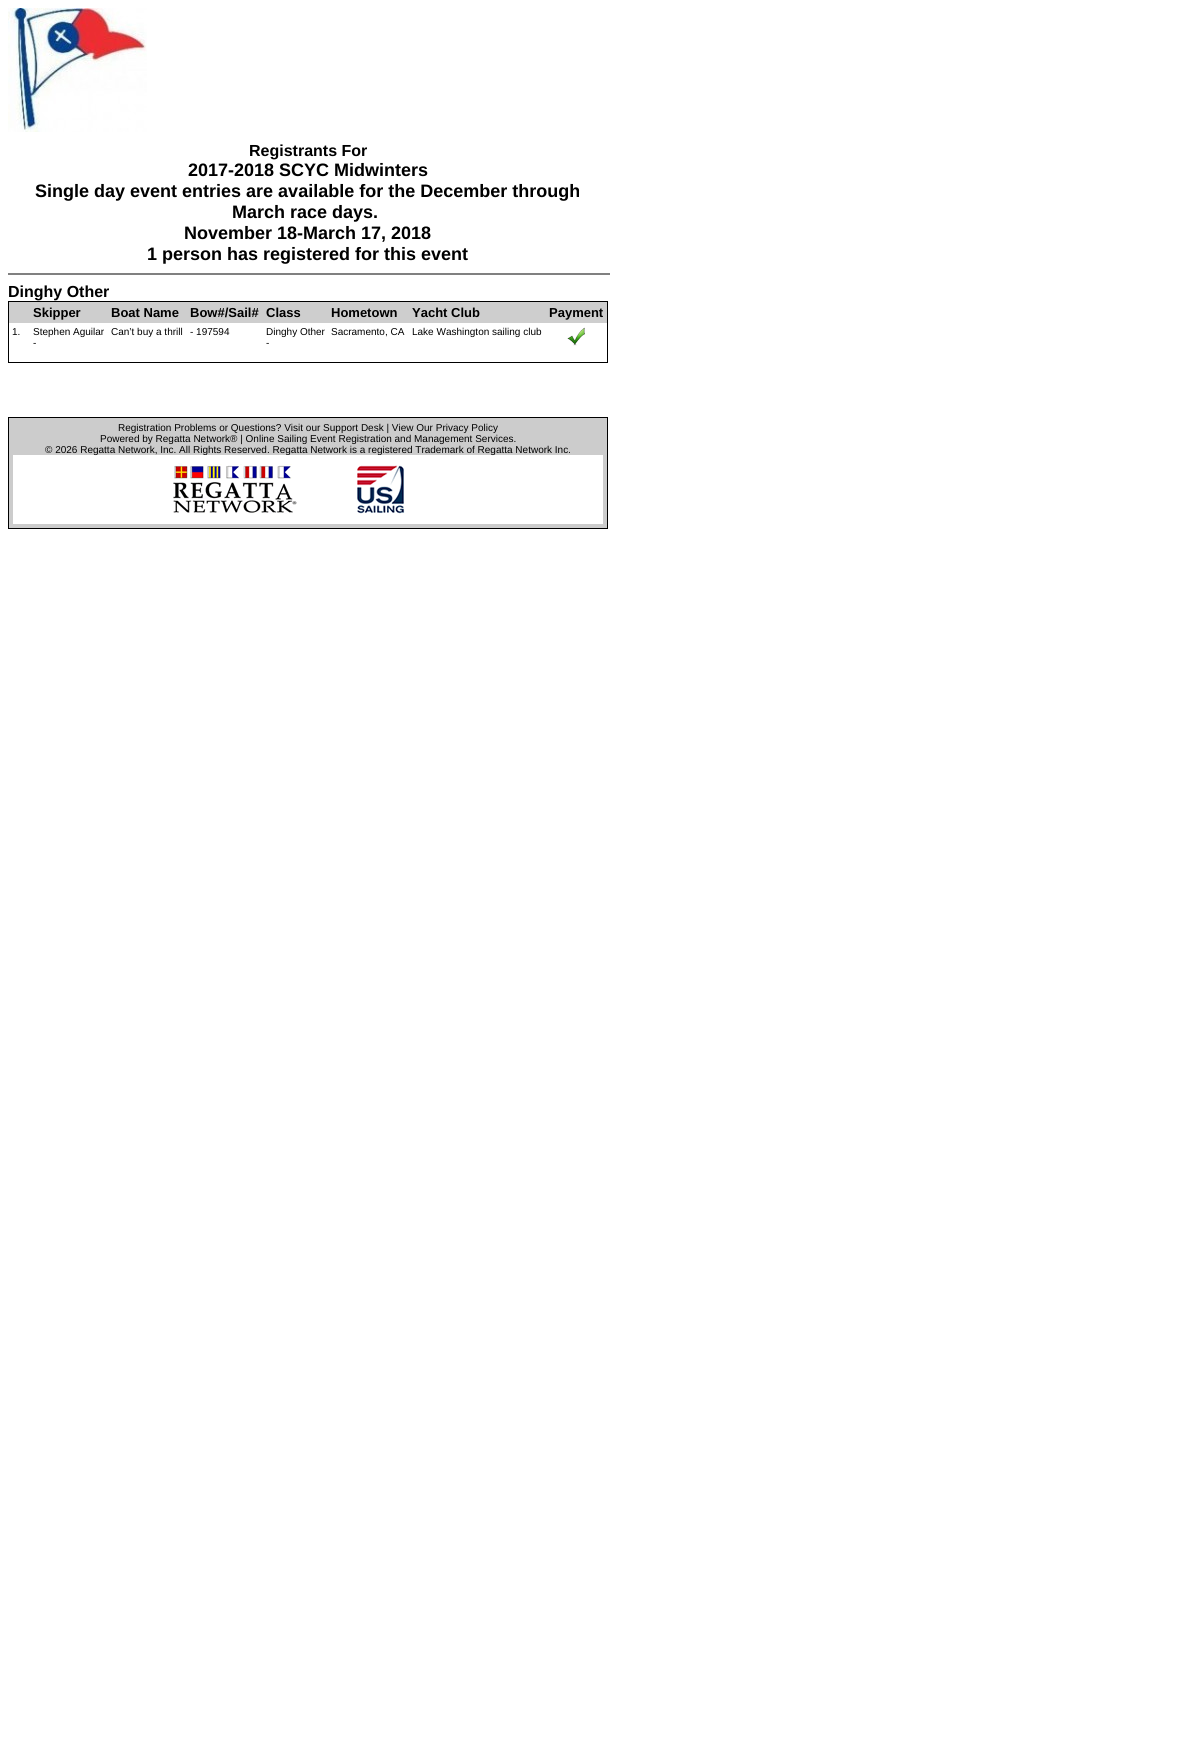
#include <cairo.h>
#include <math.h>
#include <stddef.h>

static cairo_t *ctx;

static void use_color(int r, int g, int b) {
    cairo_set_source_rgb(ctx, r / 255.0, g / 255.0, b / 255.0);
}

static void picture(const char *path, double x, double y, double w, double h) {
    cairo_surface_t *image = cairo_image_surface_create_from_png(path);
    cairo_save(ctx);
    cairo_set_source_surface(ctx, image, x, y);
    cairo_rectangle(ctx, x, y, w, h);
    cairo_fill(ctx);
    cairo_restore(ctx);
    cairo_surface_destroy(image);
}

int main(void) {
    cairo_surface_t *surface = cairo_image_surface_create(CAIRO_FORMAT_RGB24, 1197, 1743);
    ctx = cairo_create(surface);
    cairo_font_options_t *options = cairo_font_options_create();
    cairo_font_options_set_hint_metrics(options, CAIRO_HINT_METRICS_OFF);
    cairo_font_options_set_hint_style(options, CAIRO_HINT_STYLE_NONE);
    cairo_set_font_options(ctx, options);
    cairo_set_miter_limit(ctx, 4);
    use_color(255, 255, 255);
    cairo_paint(ctx);
    picture("img1.png", 8, 8, 139, 124);
    cairo_select_font_face(ctx, "Liberation Sans", CAIRO_FONT_SLANT_NORMAL, CAIRO_FONT_WEIGHT_BOLD);
    cairo_set_font_size(ctx, 16);
    use_color(0, 0, 0);
    cairo_move_to(ctx, 249, 156);
    cairo_show_text(ctx, "Registrants For");
    cairo_set_font_size(ctx, 18);
    cairo_move_to(ctx, 188, 176);
    cairo_show_text(ctx, "2017-2018 SCYC Midwinters");
    cairo_move_to(ctx, 35, 197);
    cairo_show_text(ctx, "Single day event entries are available for the December through");
    cairo_move_to(ctx, 232, 218);
    cairo_show_text(ctx, "March race days.");
    cairo_move_to(ctx, 184, 239);
    cairo_show_text(ctx, "November 18-March 17, 2018");
    cairo_move_to(ctx, 147, 260);
    cairo_show_text(ctx, "1 person has registered for this event");
    use_color(128, 128, 128);
    cairo_rectangle(ctx, 8, 273, 602, 2);
    cairo_fill(ctx);
    cairo_set_font_size(ctx, 16);
    use_color(0, 0, 0);
    cairo_move_to(ctx, 8, 297);
    cairo_show_text(ctx, "Dinghy Other");
    cairo_rectangle(ctx, 8, 301, 600, 62);
    cairo_fill(ctx);
    use_color(206, 206, 206);
    cairo_rectangle(ctx, 9, 302, 598, 21);
    cairo_fill(ctx);
    cairo_set_font_size(ctx, 13);
    use_color(0, 0, 0);
    cairo_move_to(ctx, 33, 317);
    cairo_show_text(ctx, "Skipper");
    cairo_move_to(ctx, 111, 317);
    cairo_show_text(ctx, "Boat Name");
    cairo_move_to(ctx, 190, 317);
    cairo_show_text(ctx, "Bow#/Sail#");
    cairo_move_to(ctx, 266, 317);
    cairo_show_text(ctx, "Class");
    cairo_move_to(ctx, 331, 317);
    cairo_show_text(ctx, "Hometown");
    cairo_move_to(ctx, 412, 317);
    cairo_show_text(ctx, "Yacht Club");
    cairo_move_to(ctx, 549, 317);
    cairo_show_text(ctx, "Payment");
    use_color(255, 255, 255);
    cairo_rectangle(ctx, 9, 323, 598, 39);
    cairo_fill(ctx);
    cairo_select_font_face(ctx, "Liberation Sans", CAIRO_FONT_SLANT_NORMAL, CAIRO_FONT_WEIGHT_NORMAL);
    cairo_set_font_size(ctx, 10);
    use_color(0, 0, 0);
    cairo_move_to(ctx, 12, 335);
    cairo_show_text(ctx, "1.");
    cairo_move_to(ctx, 33, 335);
    cairo_show_text(ctx, "Stephen Aguilar");
    cairo_move_to(ctx, 33, 346);
    cairo_show_text(ctx, "-");
    cairo_move_to(ctx, 111, 335);
    cairo_show_text(ctx, "Can’t buy a thrill");
    cairo_move_to(ctx, 190, 335);
    cairo_show_text(ctx, "- 197594");
    cairo_move_to(ctx, 266, 335);
    cairo_show_text(ctx, "Dinghy Other");
    cairo_move_to(ctx, 266, 346);
    cairo_show_text(ctx, "-");
    cairo_move_to(ctx, 331, 335);
    cairo_show_text(ctx, "Sacramento, CA");
    cairo_move_to(ctx, 412, 335);
    cairo_show_text(ctx, "Lake Washington sailing club");
    picture("img2.png", 567, 327, 18, 19);
    use_color(204, 204, 204);
    cairo_rectangle(ctx, 8.5, 417.5, 599, 111);
    cairo_fill_preserve(ctx);
    use_color(0, 0, 0);
    cairo_set_line_width(ctx, 1);
    cairo_stroke(ctx);
    cairo_move_to(ctx, 118, 431);
    cairo_show_text(ctx, "Registration Problems or Questions? Visit our Support Desk | View Our Privacy Policy");
    cairo_move_to(ctx, 100, 442);
    cairo_show_text(ctx, "Powered by Regatta Network® | Online Sailing Event Registration and Management Services.");
    use_color(255, 255, 255);
    cairo_rectangle(ctx, 13, 455, 590, 69);
    cairo_fill(ctx);
    use_color(0, 0, 0);
    cairo_move_to(ctx, 45, 453);
    cairo_show_text(ctx, "© 2026 Regatta Network, Inc. All Rights Reserved. Regatta Network is a registered Trademark of Regatta Network Inc.");
    picture("img3.png", 173, 455, 124, 59);
    picture("img4.png", 357, 455, 48, 59);
    cairo_surface_write_to_png(surface, "result.png");
    cairo_font_options_destroy(options);
    cairo_destroy(ctx);
    cairo_surface_destroy(surface);
    return 0;
}
